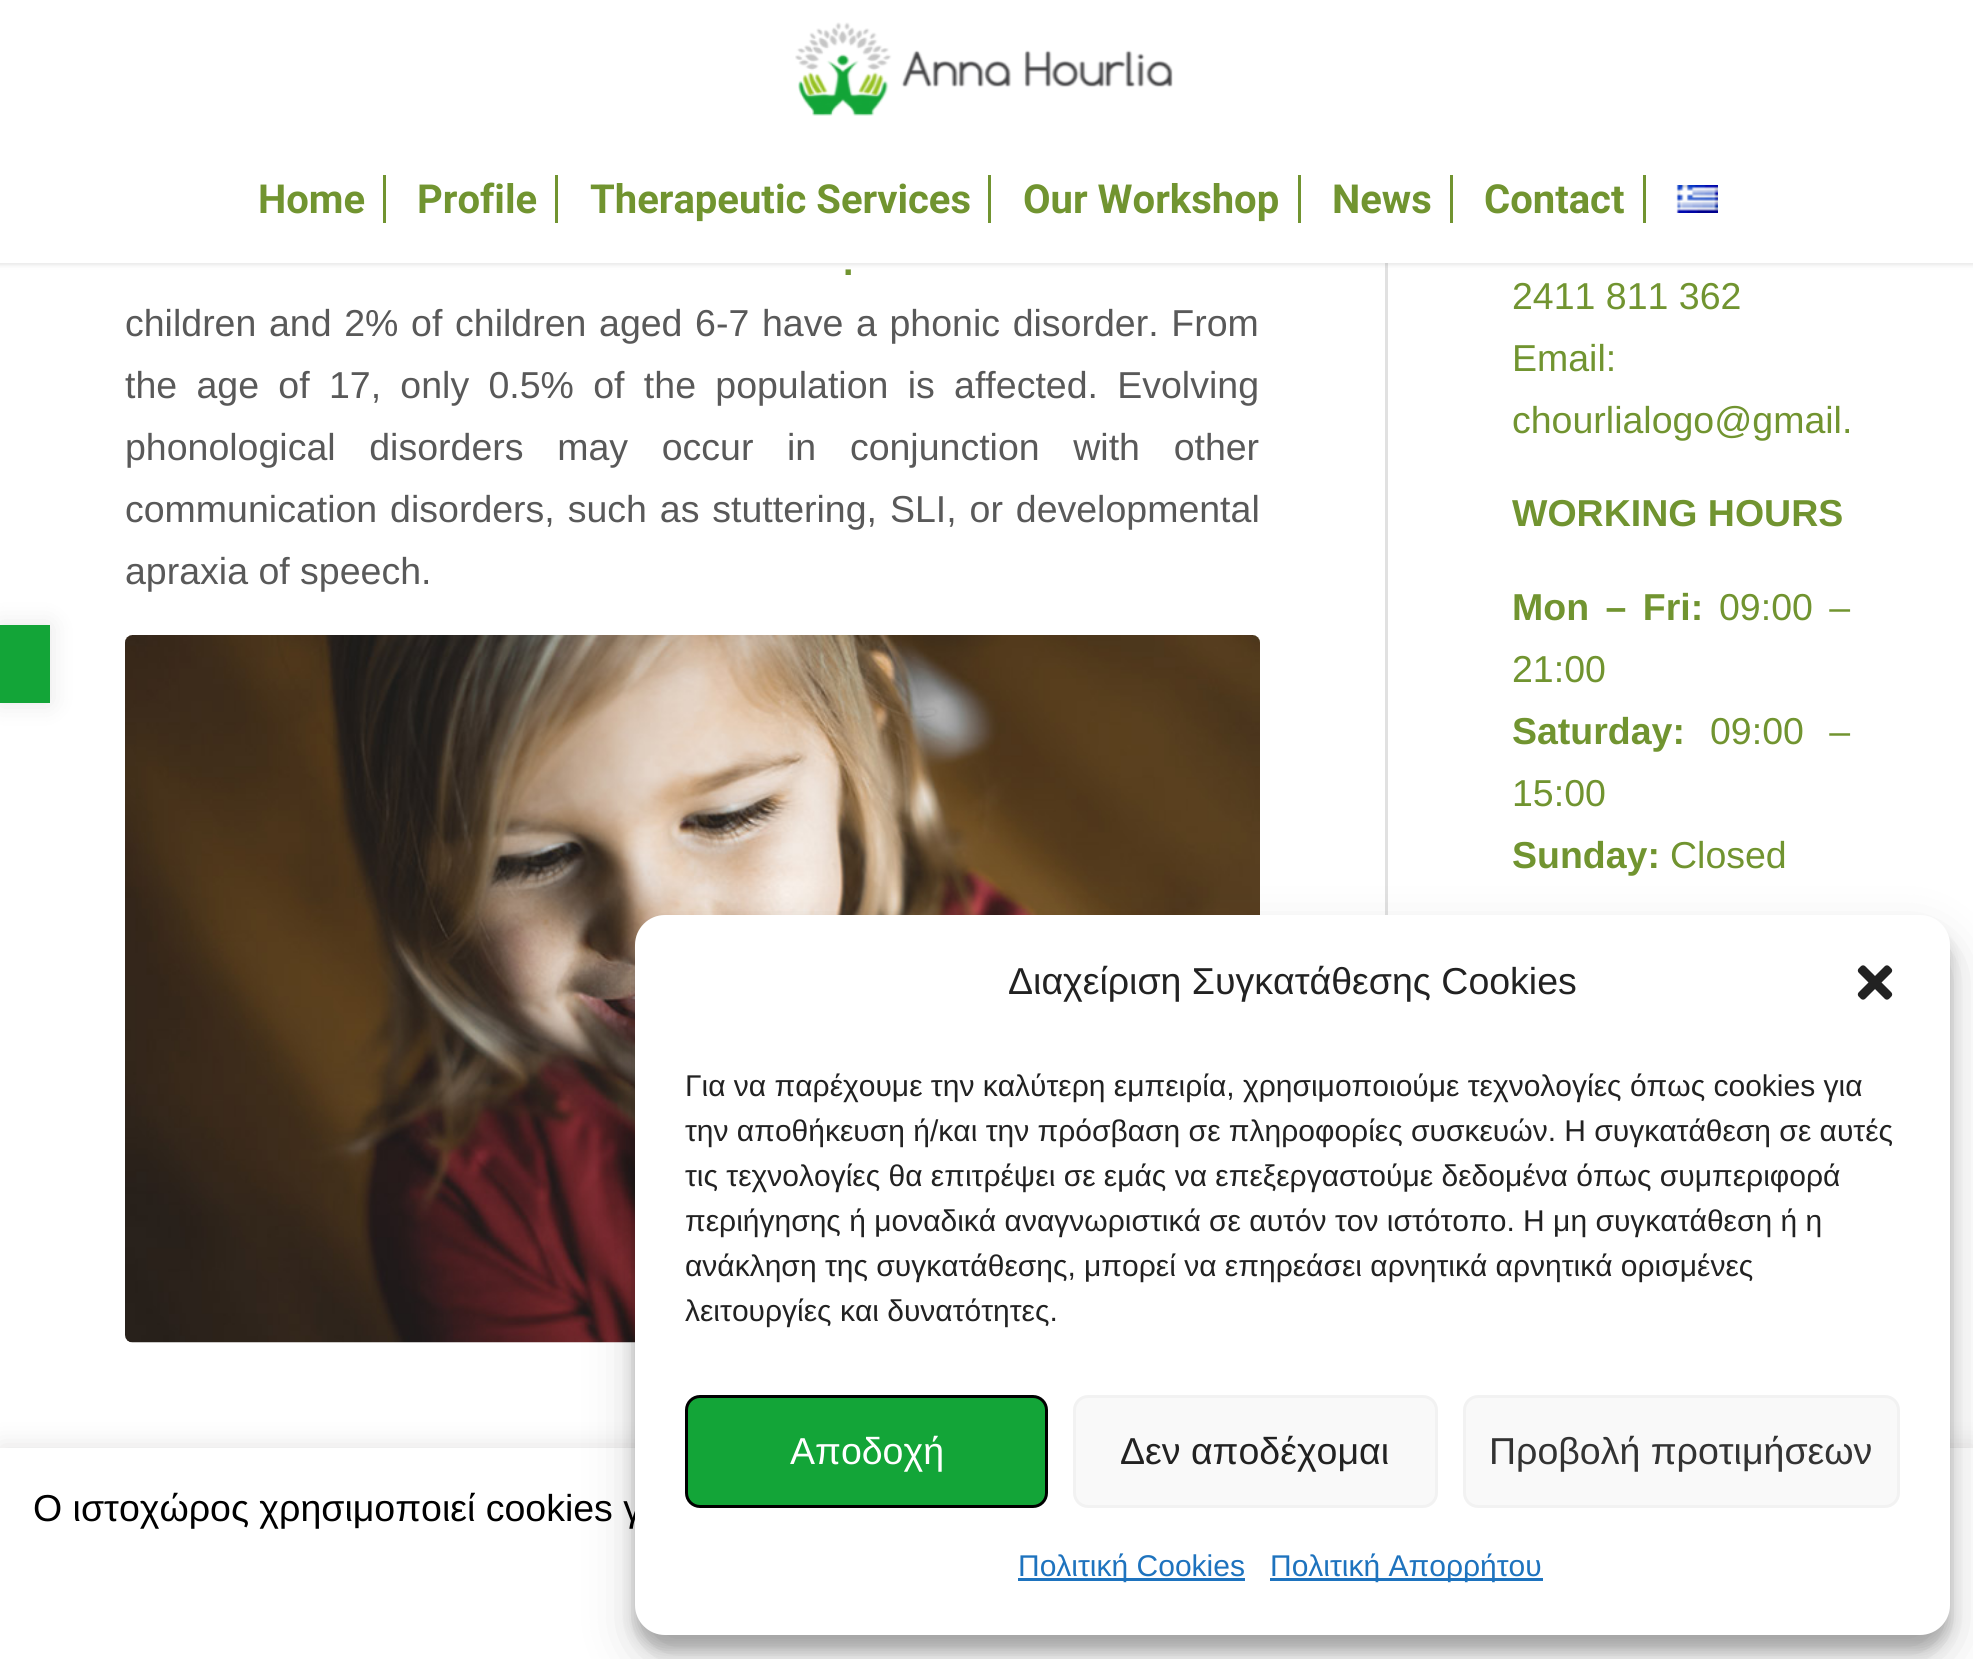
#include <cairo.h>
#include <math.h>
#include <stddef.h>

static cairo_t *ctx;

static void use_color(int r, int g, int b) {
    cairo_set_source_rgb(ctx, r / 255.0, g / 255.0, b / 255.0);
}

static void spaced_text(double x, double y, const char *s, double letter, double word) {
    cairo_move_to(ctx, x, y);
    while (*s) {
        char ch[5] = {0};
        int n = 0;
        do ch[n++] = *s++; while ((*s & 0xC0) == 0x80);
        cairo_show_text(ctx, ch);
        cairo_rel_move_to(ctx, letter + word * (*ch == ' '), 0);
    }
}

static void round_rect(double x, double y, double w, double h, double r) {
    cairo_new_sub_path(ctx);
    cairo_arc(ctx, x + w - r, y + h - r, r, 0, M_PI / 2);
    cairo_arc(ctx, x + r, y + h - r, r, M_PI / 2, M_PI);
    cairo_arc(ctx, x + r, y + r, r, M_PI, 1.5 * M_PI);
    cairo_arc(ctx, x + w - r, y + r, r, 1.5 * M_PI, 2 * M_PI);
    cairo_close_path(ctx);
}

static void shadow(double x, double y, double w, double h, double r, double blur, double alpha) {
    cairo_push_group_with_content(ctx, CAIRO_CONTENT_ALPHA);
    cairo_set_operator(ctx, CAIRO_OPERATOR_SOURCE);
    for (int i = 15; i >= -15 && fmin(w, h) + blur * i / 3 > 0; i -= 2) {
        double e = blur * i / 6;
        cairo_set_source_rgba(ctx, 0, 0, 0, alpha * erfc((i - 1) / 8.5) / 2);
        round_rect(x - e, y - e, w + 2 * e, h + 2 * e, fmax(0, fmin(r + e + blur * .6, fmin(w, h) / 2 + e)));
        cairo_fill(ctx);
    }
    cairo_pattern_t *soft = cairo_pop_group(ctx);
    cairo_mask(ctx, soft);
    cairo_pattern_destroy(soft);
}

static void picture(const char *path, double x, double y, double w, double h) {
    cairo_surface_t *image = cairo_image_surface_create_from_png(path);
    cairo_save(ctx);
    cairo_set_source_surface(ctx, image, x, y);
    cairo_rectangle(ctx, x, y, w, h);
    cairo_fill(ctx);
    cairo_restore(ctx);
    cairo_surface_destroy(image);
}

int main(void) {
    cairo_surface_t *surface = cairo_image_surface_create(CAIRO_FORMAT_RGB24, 1973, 1659);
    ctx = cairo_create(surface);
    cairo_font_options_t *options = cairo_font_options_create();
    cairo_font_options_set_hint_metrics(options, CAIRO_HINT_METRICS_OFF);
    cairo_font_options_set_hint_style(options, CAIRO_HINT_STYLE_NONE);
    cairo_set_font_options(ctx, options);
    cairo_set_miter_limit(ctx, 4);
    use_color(255, 255, 255);
    cairo_paint(ctx);
    use_color(0, 0, 0);
    shadow(0, 625, 50, 78, 0, 12.5, 0.1);
    use_color(19, 165, 56);
    cairo_rectangle(ctx, 0, 625, 50, 78);
    cairo_fill(ctx);
    use_color(225, 225, 225);
    cairo_rectangle(ctx, 1385, 263, 3, 652);
    cairo_fill(ctx);
    use_color(0, 0, 0);
    shadow(-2, -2, 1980, 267, 0, 2.5, 0.1);
    use_color(255, 255, 255);
    cairo_rectangle(ctx, 0, 0, 1973, 263);
    cairo_fill(ctx);
    picture("img1.png", 795, 22, 378, 94);
    cairo_select_font_face(ctx, "Roboto", CAIRO_FONT_SLANT_NORMAL, CAIRO_FONT_WEIGHT_BOLD);
    cairo_set_font_size(ctx, 40);
    use_color(113, 148, 48);
    cairo_move_to(ctx, 258, 213);
    cairo_show_text(ctx, "Home");
    cairo_move_to(ctx, 417, 213);
    cairo_show_text(ctx, "Profile");
    cairo_rectangle(ctx, 383, 175, 3, 48);
    cairo_fill(ctx);
    cairo_move_to(ctx, 590, 213);
    cairo_show_text(ctx, "Therapeutic Services");
    cairo_rectangle(ctx, 555, 175, 3, 48);
    cairo_fill(ctx);
    cairo_move_to(ctx, 1023, 213);
    cairo_show_text(ctx, "Our Workshop");
    cairo_rectangle(ctx, 988, 175, 3, 48);
    cairo_fill(ctx);
    cairo_move_to(ctx, 1332, 213);
    cairo_show_text(ctx, "News");
    cairo_rectangle(ctx, 1298, 175, 3, 48);
    cairo_fill(ctx);
    cairo_move_to(ctx, 1484, 213);
    cairo_show_text(ctx, "Contact");
    cairo_rectangle(ctx, 1450, 175, 3, 48);
    cairo_fill(ctx);
    cairo_rectangle(ctx, 1643, 175, 3, 48);
    cairo_fill(ctx);
    picture("img2.png", 1676, 185, 42, 28);
    cairo_select_font_face(ctx, "Liberation Sans", CAIRO_FONT_SLANT_NORMAL, CAIRO_FONT_WEIGHT_BOLD);
    cairo_set_font_size(ctx, 37.5);
    spaced_text(843, 275, ".", 0, 5);
    cairo_select_font_face(ctx, "Liberation Sans", CAIRO_FONT_SLANT_NORMAL, CAIRO_FONT_WEIGHT_NORMAL);
    use_color(89, 89, 89);
    spaced_text(125, 336, "children and 2% of children aged 6-7 have a phonic disorder. From", 0, 2.25);
    spaced_text(125, 398, "the age of 17, only 0.5% of the population is affected. Evolving", 0, 8.9);
    spaced_text(125, 460, "phonological disorders may occur in conjunction with other", 0, 23.25);
    spaced_text(125, 522, "communication disorders, such as stuttering, SLI, or developmental", 0, 2.5);
    cairo_move_to(ctx, 125, 584);
    cairo_show_text(ctx, "apraxia of speech.");
    picture("img3.png", 125, 635, 1135, 708);
    use_color(113, 148, 48);
    cairo_move_to(ctx, 1512, 309);
    cairo_show_text(ctx, "2411 811 362");
    cairo_move_to(ctx, 1512, 371);
    cairo_show_text(ctx, "Email:");
    cairo_move_to(ctx, 1512, 433);
    cairo_show_text(ctx, "chourlialogo@gmail.");
    cairo_select_font_face(ctx, "Liberation Sans", CAIRO_FONT_SLANT_NORMAL, CAIRO_FONT_WEIGHT_BOLD);
    cairo_move_to(ctx, 1512, 526);
    cairo_show_text(ctx, "WORKING HOURS");
    spaced_text(1512, 620, "Mon – Fri:", 0, 6);
    cairo_select_font_face(ctx, "Liberation Sans", CAIRO_FONT_SLANT_NORMAL, CAIRO_FONT_WEIGHT_NORMAL);
    spaced_text(1719, 620, "09:00 –", 0, 6);
    cairo_move_to(ctx, 1512, 682);
    cairo_show_text(ctx, "21:00");
    cairo_select_font_face(ctx, "Liberation Sans", CAIRO_FONT_SLANT_NORMAL, CAIRO_FONT_WEIGHT_BOLD);
    cairo_move_to(ctx, 1512, 744);
    cairo_show_text(ctx, "Saturday:");
    cairo_select_font_face(ctx, "Liberation Sans", CAIRO_FONT_SLANT_NORMAL, CAIRO_FONT_WEIGHT_NORMAL);
    spaced_text(1710, 744, "09:00 –", 0, 15);
    cairo_move_to(ctx, 1512, 806);
    cairo_show_text(ctx, "15:00");
    cairo_select_font_face(ctx, "Liberation Sans", CAIRO_FONT_SLANT_NORMAL, CAIRO_FONT_WEIGHT_BOLD);
    cairo_move_to(ctx, 1512, 868);
    cairo_show_text(ctx, "Sunday:");
    cairo_select_font_face(ctx, "Liberation Sans", CAIRO_FONT_SLANT_NORMAL, CAIRO_FONT_WEIGHT_NORMAL);
    cairo_move_to(ctx, 1670, 868);
    cairo_show_text(ctx, "Closed");
    use_color(172, 171, 171);
    shadow(0, 1445, 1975, 213, 0, 12.5, 0.3);
    use_color(255, 255, 255);
    cairo_rectangle(ctx, 0, 1448, 1973, 211);
    cairo_fill(ctx);
    use_color(0, 0, 0);
    cairo_move_to(ctx, 33, 1521);
    cairo_show_text(ctx, "Ο ιστοχώρος χρησιμοποιεί cookies γ");
    use_color(0, 0, 0);
    shadow(635, 930, 1315, 720, 30, 7.5, 0.23);
    shadow(635, 940, 1315, 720, 30, 25, 0.19);
    use_color(255, 255, 255);
    round_rect(635, 915, 1315, 720, 30);
    cairo_fill(ctx);
    use_color(34, 34, 34);
    cairo_move_to(ctx, 1008, 994);
    cairo_show_text(ctx, "Διαχείριση Συγκατάθεσης Cookies");
    picture("img4.png", 1857, 965, 36, 35);
    cairo_set_font_size(ctx, 30);
    cairo_move_to(ctx, 685, 1096);
    cairo_show_text(ctx, "Για να παρέχουμε την καλύτερη εμπειρία, χρησιμοποιούμε τεχνολογίες όπως cookies για");
    cairo_move_to(ctx, 685, 1141);
    cairo_show_text(ctx, "την αποθήκευση ή/και την πρόσβαση σε πληροφορίες συσκευών. Η συγκατάθεση σε αυτές");
    cairo_move_to(ctx, 685, 1186);
    cairo_show_text(ctx, "τις τεχνολογίες θα επιτρέψει σε εμάς να επεξεργαστούμε δεδομένα όπως συμπεριφορά");
    cairo_move_to(ctx, 685, 1231);
    cairo_show_text(ctx, "περιήγησης ή μοναδικά αναγνωριστικά σε αυτόν τον ιστότοπο. Η μη συγκατάθεση ή η");
    cairo_move_to(ctx, 685, 1276);
    cairo_show_text(ctx, "ανάκληση της συγκατάθεσης, μπορεί να επηρεάσει αρνητικά αρνητικά ορισμένες");
    cairo_move_to(ctx, 685, 1321);
    cairo_show_text(ctx, "λειτουργίες και δυνατότητες.");
    use_color(19, 165, 56);
    round_rect(686.5, 1396.5, 360, 110, 13.5);
    cairo_fill_preserve(ctx);
    use_color(0, 0, 0);
    cairo_set_line_width(ctx, 3);
    cairo_stroke(ctx);
    cairo_set_font_size(ctx, 37.5);
    use_color(255, 255, 255);
    cairo_move_to(ctx, 790, 1464);
    cairo_show_text(ctx, "Αποδοχή");
    use_color(249, 249, 249);
    round_rect(1074.5, 1396.5, 362, 110, 13.5);
    cairo_fill_preserve(ctx);
    use_color(242, 242, 242);
    cairo_stroke(ctx);
    use_color(34, 34, 34);
    cairo_move_to(ctx, 1120, 1464);
    cairo_show_text(ctx, "Δεν αποδέχομαι");
    use_color(249, 249, 249);
    round_rect(1464.5, 1396.5, 434, 110, 13.5);
    cairo_fill_preserve(ctx);
    use_color(242, 242, 242);
    cairo_stroke(ctx);
    use_color(51, 51, 51);
    cairo_move_to(ctx, 1489, 1464);
    cairo_show_text(ctx, "Προβολή προτιμήσεων");
    use_color(30, 115, 190);
    cairo_rectangle(ctx, 1018, 1578, 227, 3);
    cairo_fill(ctx);
    cairo_set_font_size(ctx, 30);
    cairo_move_to(ctx, 1018, 1576);
    cairo_show_text(ctx, "Πολιτική Cookies");
    cairo_rectangle(ctx, 1270, 1578, 273, 3);
    cairo_fill(ctx);
    cairo_move_to(ctx, 1270, 1576);
    cairo_show_text(ctx, "Πολιτική Απορρήτου");
    cairo_surface_write_to_png(surface, "result.png");
    cairo_font_options_destroy(options);
    cairo_destroy(ctx);
    cairo_surface_destroy(surface);
    return 0;
}
